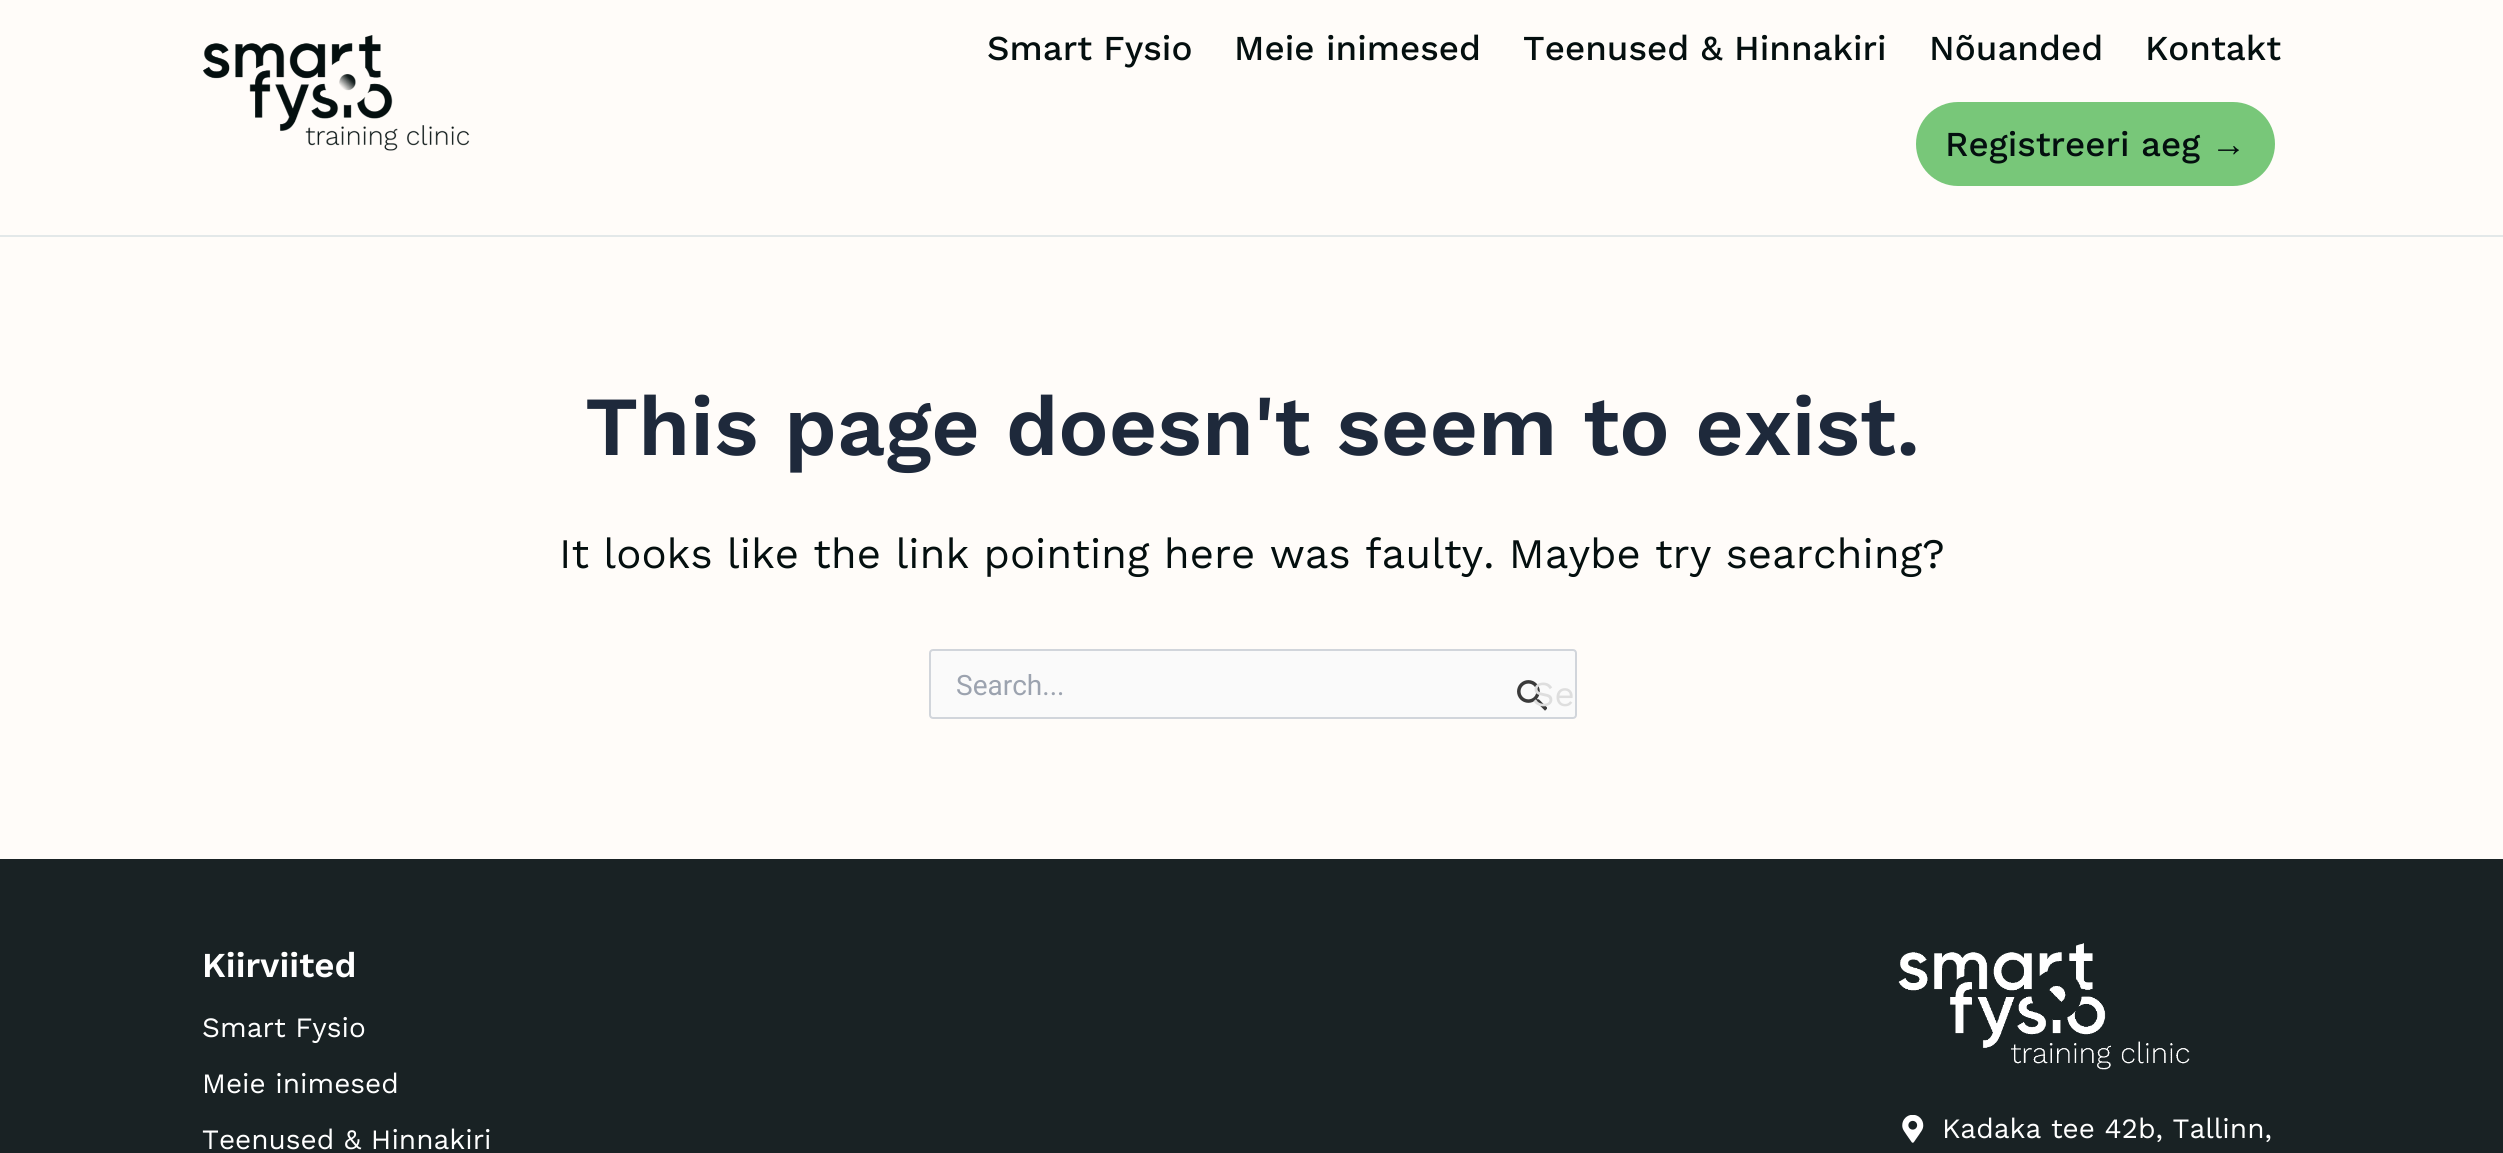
#include <cairo.h>
#include <math.h>
#include <stddef.h>

static cairo_t *ctx;

static void use_color(int r, int g, int b) {
    cairo_set_source_rgb(ctx, r / 255.0, g / 255.0, b / 255.0);
}

static void round_rect(double x, double y, double w, double h, double r) {
    cairo_new_sub_path(ctx);
    cairo_arc(ctx, x + w - r, y + h - r, r, 0, M_PI / 2);
    cairo_arc(ctx, x + r, y + h - r, r, M_PI / 2, M_PI);
    cairo_arc(ctx, x + r, y + r, r, M_PI, 1.5 * M_PI);
    cairo_arc(ctx, x + w - r, y + r, r, 1.5 * M_PI, 2 * M_PI);
    cairo_close_path(ctx);
}

static void picture(const char *path, double x, double y, double w, double h) {
    cairo_surface_t *image = cairo_image_surface_create_from_png(path);
    cairo_save(ctx);
    cairo_set_source_surface(ctx, image, x, y);
    cairo_rectangle(ctx, x, y, w, h);
    cairo_fill(ctx);
    cairo_restore(ctx);
    cairo_surface_destroy(image);
}

int main(void) {
    cairo_surface_t *surface = cairo_image_surface_create(CAIRO_FORMAT_RGB24, 2503, 1153);
    ctx = cairo_create(surface);
    cairo_font_options_t *options = cairo_font_options_create();
    cairo_font_options_set_hint_metrics(options, CAIRO_HINT_METRICS_OFF);
    cairo_font_options_set_hint_style(options, CAIRO_HINT_STYLE_NONE);
    cairo_set_font_options(ctx, options);
    cairo_set_miter_limit(ctx, 4);
    use_color(255, 252, 249);
    cairo_paint(ctx);
    use_color(227, 232, 233);
    cairo_rectangle(ctx, 0, 235, 2503, 2);
    cairo_fill(ctx);
    picture("img1.png", 203, 35, 267, 116);
    cairo_select_font_face(ctx, "Work Sans Medium", CAIRO_FONT_SLANT_NORMAL, CAIRO_FONT_WEIGHT_NORMAL);
    cairo_set_font_size(ctx, 35);
    use_color(4, 15, 15);
    cairo_move_to(ctx, 987, 60);
    cairo_show_text(ctx, "Smart Fysio");
    cairo_move_to(ctx, 1234, 60);
    cairo_show_text(ctx, "Meie inimesed");
    cairo_move_to(ctx, 1523, 60);
    cairo_show_text(ctx, "Teenused & Hinnakiri");
    cairo_move_to(ctx, 1929, 60);
    cairo_show_text(ctx, "Nõuanded");
    cairo_move_to(ctx, 2145, 60);
    cairo_show_text(ctx, "Kontakt");
    use_color(120, 199, 121);
    round_rect(1916, 102, 359, 84, 42);
    cairo_fill(ctx);
    use_color(4, 15, 15);
    cairo_move_to(ctx, 1945, 156);
    cairo_show_text(ctx, "Registreeri aeg");
    cairo_select_font_face(ctx, "Liberation Sans", CAIRO_FONT_SLANT_NORMAL, CAIRO_FONT_WEIGHT_NORMAL);
    cairo_move_to(ctx, 2211, 156);
    cairo_show_text(ctx, "→");
    cairo_select_font_face(ctx, "Work Sans SemiBold", CAIRO_FONT_SLANT_NORMAL, CAIRO_FONT_WEIGHT_NORMAL);
    cairo_set_font_size(ctx, 84);
    use_color(30, 41, 59);
    cairo_move_to(ctx, 585, 455);
    cairo_show_text(ctx, "This page doesn't seem to exist.");
    cairo_select_font_face(ctx, "Work Sans", CAIRO_FONT_SLANT_NORMAL, CAIRO_FONT_WEIGHT_NORMAL);
    cairo_set_font_size(ctx, 42);
    use_color(4, 15, 15);
    cairo_move_to(ctx, 559, 568);
    cairo_show_text(ctx, "It looks like the link pointing here was faulty. Maybe try searching?");
    use_color(250, 250, 250);
    round_rect(930, 650, 646, 68, 3);
    cairo_fill_preserve(ctx);
    use_color(209, 213, 219);
    cairo_stroke(ctx);
    cairo_select_font_face(ctx, "Roboto", CAIRO_FONT_SLANT_NORMAL, CAIRO_FONT_WEIGHT_NORMAL);
    cairo_set_font_size(ctx, 28);
    use_color(156, 163, 175);
    cairo_move_to(ctx, 956, 695);
    cairo_show_text(ctx, "Search...");
    picture("img2.png", 1517, 680, 30, 31);
    cairo_select_font_face(ctx, "Work Sans", CAIRO_FONT_SLANT_NORMAL, CAIRO_FONT_WEIGHT_NORMAL);
    cairo_set_font_size(ctx, 35);
    use_color(222, 222, 222);
    cairo_move_to(ctx, 1532, 706);
    cairo_show_text(ctx, "Se");
    use_color(25, 34, 36);
    cairo_rectangle(ctx, 0, 859, 2503, 294);
    cairo_fill(ctx);
    cairo_select_font_face(ctx, "Work Sans SemiBold", CAIRO_FONT_SLANT_NORMAL, CAIRO_FONT_WEIGHT_NORMAL);
    use_color(255, 255, 255);
    cairo_move_to(ctx, 202, 977);
    cairo_show_text(ctx, "Kiirviited");
    cairo_select_font_face(ctx, "Work Sans", CAIRO_FONT_SLANT_NORMAL, CAIRO_FONT_WEIGHT_NORMAL);
    cairo_set_font_size(ctx, 28);
    cairo_move_to(ctx, 202, 1037);
    cairo_show_text(ctx, "Smart Fysio");
    cairo_move_to(ctx, 202, 1093);
    cairo_show_text(ctx, "Meie inimesed");
    cairo_move_to(ctx, 202, 1149);
    cairo_show_text(ctx, "Teenused & Hinnakiri");
    picture("img3.png", 1898, 943, 292, 127);
    picture("img4.png", 1902, 1115, 22, 28);
    cairo_move_to(ctx, 1942, 1138);
    cairo_show_text(ctx, "Kadaka tee 42b, Tallinn,");
    cairo_surface_write_to_png(surface, "result.png");
    cairo_font_options_destroy(options);
    cairo_destroy(ctx);
    cairo_surface_destroy(surface);
    return 0;
}
